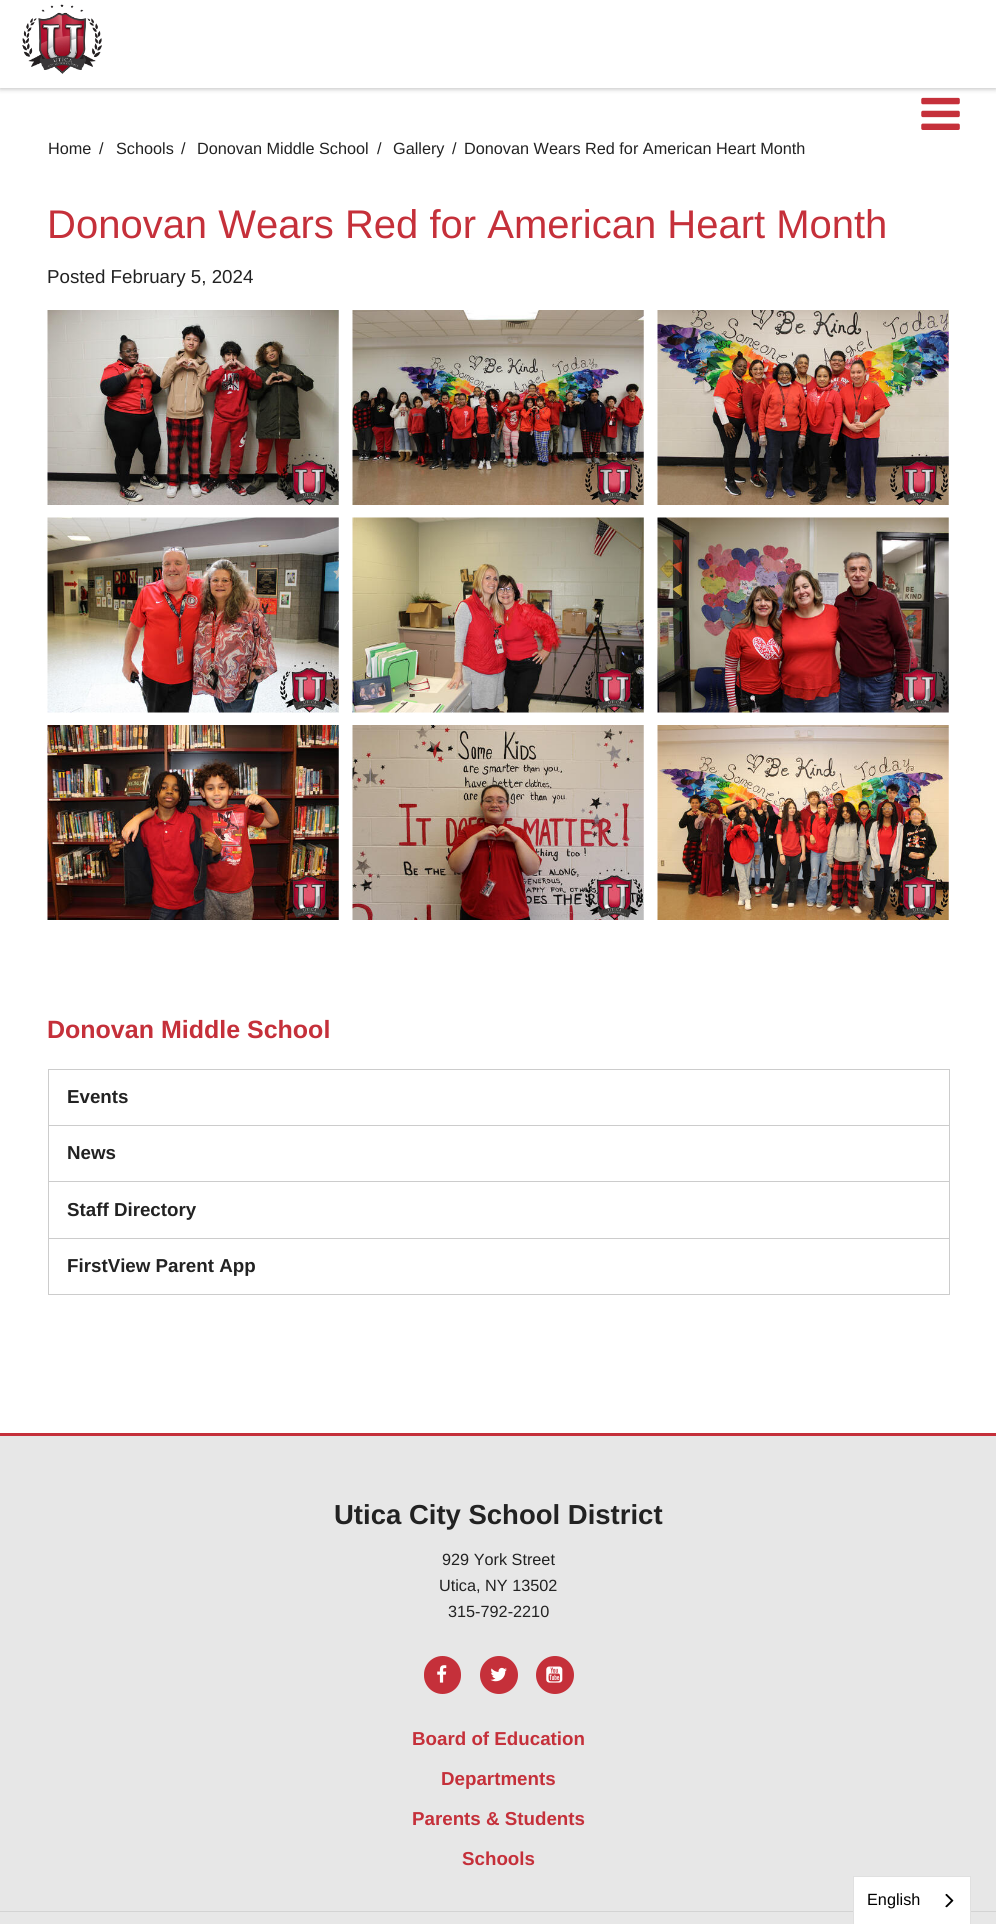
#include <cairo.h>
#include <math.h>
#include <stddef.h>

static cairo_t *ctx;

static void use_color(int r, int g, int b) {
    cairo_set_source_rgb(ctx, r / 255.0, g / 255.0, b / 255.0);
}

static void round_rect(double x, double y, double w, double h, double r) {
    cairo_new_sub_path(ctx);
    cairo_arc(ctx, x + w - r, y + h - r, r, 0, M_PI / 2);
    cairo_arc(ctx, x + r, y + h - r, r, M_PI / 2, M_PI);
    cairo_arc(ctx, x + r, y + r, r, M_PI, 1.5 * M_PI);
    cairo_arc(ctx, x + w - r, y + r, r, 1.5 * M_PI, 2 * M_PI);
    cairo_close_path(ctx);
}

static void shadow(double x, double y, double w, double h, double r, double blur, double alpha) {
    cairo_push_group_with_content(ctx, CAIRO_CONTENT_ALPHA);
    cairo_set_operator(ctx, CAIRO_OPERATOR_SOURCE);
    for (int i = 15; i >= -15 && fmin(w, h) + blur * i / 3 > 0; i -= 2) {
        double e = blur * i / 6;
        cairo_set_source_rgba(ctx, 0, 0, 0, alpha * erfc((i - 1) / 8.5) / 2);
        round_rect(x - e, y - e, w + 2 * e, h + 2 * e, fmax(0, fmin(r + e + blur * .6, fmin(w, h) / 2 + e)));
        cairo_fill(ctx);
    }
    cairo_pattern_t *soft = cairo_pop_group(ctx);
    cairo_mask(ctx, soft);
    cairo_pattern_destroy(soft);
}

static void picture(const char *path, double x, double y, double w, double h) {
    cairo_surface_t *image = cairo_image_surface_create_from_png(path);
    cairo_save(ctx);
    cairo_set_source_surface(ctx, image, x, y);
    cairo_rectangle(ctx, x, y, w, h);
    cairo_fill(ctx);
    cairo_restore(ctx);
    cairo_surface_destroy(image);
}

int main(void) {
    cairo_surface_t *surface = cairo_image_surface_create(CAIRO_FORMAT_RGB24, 996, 1924);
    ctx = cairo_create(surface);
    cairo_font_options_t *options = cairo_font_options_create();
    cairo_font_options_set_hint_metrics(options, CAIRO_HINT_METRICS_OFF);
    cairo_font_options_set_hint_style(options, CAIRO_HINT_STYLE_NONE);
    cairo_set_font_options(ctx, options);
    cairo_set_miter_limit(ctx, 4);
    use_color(255, 255, 255);
    cairo_paint(ctx);
    use_color(0, 0, 0);
    shadow(0, 1, 996, 88, 0, 2.5, 0.25);
    use_color(255, 255, 255);
    cairo_rectangle(ctx, 0, 0, 996, 88);
    cairo_fill(ctx);
    picture("img1.png", 22, 4, 80, 70);
    picture("img2.png", 921, 97, 39, 33);
    cairo_select_font_face(ctx, "Liberation Sans", CAIRO_FONT_SLANT_NORMAL, CAIRO_FONT_WEIGHT_NORMAL);
    cairo_set_font_size(ctx, 16.25);
    use_color(34, 34, 34);
    cairo_move_to(ctx, 48, 154);
    cairo_show_text(ctx, "Home");
    cairo_move_to(ctx, 99, 154);
    cairo_show_text(ctx, "/");
    cairo_move_to(ctx, 116, 154);
    cairo_show_text(ctx, "Schools");
    cairo_move_to(ctx, 181, 154);
    cairo_show_text(ctx, "/");
    cairo_move_to(ctx, 197, 154);
    cairo_show_text(ctx, "Donovan Middle School");
    cairo_move_to(ctx, 377, 154);
    cairo_show_text(ctx, "/");
    cairo_move_to(ctx, 393, 154);
    cairo_show_text(ctx, "Gallery");
    cairo_move_to(ctx, 452, 154);
    cairo_show_text(ctx, "/");
    cairo_move_to(ctx, 464, 154);
    cairo_show_text(ctx, "Donovan Wears Red for American Heart Month");
    cairo_set_font_size(ctx, 40);
    use_color(197, 48, 58);
    cairo_move_to(ctx, 47, 238);
    cairo_show_text(ctx, "Donovan Wears Red for American Heart Month");
    cairo_set_font_size(ctx, 18.75);
    use_color(34, 34, 34);
    cairo_move_to(ctx, 47, 283);
    cairo_show_text(ctx, "Posted February 5, 2024");
    picture("img3.png", 47, 310, 292, 195);
    picture("img4.png", 352, 310, 292, 195);
    picture("img5.png", 657, 310, 292, 195);
    picture("img6.png", 47, 517, 292, 196);
    picture("img7.png", 352, 517, 292, 196);
    picture("img8.png", 657, 517, 292, 196);
    picture("img9.png", 47, 725, 292, 195);
    picture("img10.png", 352, 725, 292, 195);
    picture("img11.png", 657, 725, 292, 195);
    cairo_select_font_face(ctx, "Liberation Sans", CAIRO_FONT_SLANT_NORMAL, CAIRO_FONT_WEIGHT_BOLD);
    cairo_set_font_size(ctx, 25);
    use_color(197, 48, 58);
    cairo_move_to(ctx, 47, 1038);
    cairo_show_text(ctx, "Donovan Middle School");
    use_color(204, 204, 204);
    cairo_rectangle(ctx, 48, 1069, 902, 1);
    cairo_fill(ctx);
    cairo_rectangle(ctx, 949, 1069, 1, 56);
    cairo_fill(ctx);
    cairo_rectangle(ctx, 48, 1069, 1, 56);
    cairo_fill(ctx);
    cairo_set_font_size(ctx, 18.75);
    use_color(34, 34, 34);
    cairo_move_to(ctx, 67, 1103);
    cairo_show_text(ctx, "Events");
    use_color(204, 204, 204);
    cairo_rectangle(ctx, 48, 1125, 902, 1);
    cairo_fill(ctx);
    cairo_rectangle(ctx, 949, 1125, 1, 56);
    cairo_fill(ctx);
    cairo_rectangle(ctx, 48, 1125, 1, 56);
    cairo_fill(ctx);
    use_color(34, 34, 34);
    cairo_move_to(ctx, 67, 1159);
    cairo_show_text(ctx, "News");
    use_color(204, 204, 204);
    cairo_rectangle(ctx, 48, 1181, 902, 1);
    cairo_fill(ctx);
    cairo_rectangle(ctx, 949, 1181, 1, 57);
    cairo_fill(ctx);
    cairo_rectangle(ctx, 48, 1181, 1, 57);
    cairo_fill(ctx);
    use_color(34, 34, 34);
    cairo_move_to(ctx, 67, 1216);
    cairo_show_text(ctx, "Staff Directory");
    cairo_rectangle(ctx, 48.5, 1238.5, 901, 56);
    use_color(204, 204, 204);
    cairo_set_line_width(ctx, 1);
    cairo_stroke(ctx);
    use_color(34, 34, 34);
    cairo_move_to(ctx, 67, 1272);
    cairo_show_text(ctx, "FirstView Parent App");
    use_color(231, 231, 231);
    cairo_rectangle(ctx, 0, 1436, 996, 488);
    cairo_fill(ctx);
    use_color(197, 48, 58);
    cairo_rectangle(ctx, 0, 1433, 996, 3);
    cairo_fill(ctx);
    cairo_set_font_size(ctx, 27.5);
    use_color(34, 34, 34);
    cairo_move_to(ctx, 334, 1524);
    cairo_show_text(ctx, "Utica City School District");
    cairo_select_font_face(ctx, "Liberation Sans", CAIRO_FONT_SLANT_NORMAL, CAIRO_FONT_WEIGHT_NORMAL);
    cairo_set_font_size(ctx, 16.25);
    cairo_move_to(ctx, 442, 1565);
    cairo_show_text(ctx, "929 York Street");
    cairo_move_to(ctx, 439, 1591);
    cairo_show_text(ctx, "Utica, NY 13502");
    cairo_move_to(ctx, 448, 1617);
    cairo_show_text(ctx, "315-792-2210");
    use_color(197, 48, 58);
    round_rect(424, 1656, 37, 38, 18.5);
    cairo_fill(ctx);
    picture("img12.png", 437, 1665, 10, 18);
    cairo_arc(ctx, 499, 1675, 19, 0, 2 * M_PI);
    cairo_fill(ctx);
    picture("img13.png", 490, 1667, 17, 15);
    cairo_arc(ctx, 555, 1675, 19, 0, 2 * M_PI);
    cairo_fill(ctx);
    picture("img14.png", 546, 1666, 17, 17);
    cairo_select_font_face(ctx, "Liberation Sans", CAIRO_FONT_SLANT_NORMAL, CAIRO_FONT_WEIGHT_BOLD);
    cairo_set_font_size(ctx, 18.75);
    cairo_move_to(ctx, 412, 1745);
    cairo_show_text(ctx, "Board of Education");
    cairo_move_to(ctx, 441, 1785);
    cairo_show_text(ctx, "Departments");
    cairo_move_to(ctx, 412, 1825);
    cairo_show_text(ctx, "Parents & Students");
    cairo_move_to(ctx, 462, 1865);
    cairo_show_text(ctx, "Schools");
    use_color(211, 211, 211);
    cairo_rectangle(ctx, 0, 1911, 996, 1);
    cairo_fill(ctx);
    use_color(255, 255, 255);
    cairo_rectangle(ctx, 853.5, 1876.5, 117, 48);
    cairo_fill_preserve(ctx);
    use_color(224, 224, 224);
    cairo_stroke(ctx);
    cairo_select_font_face(ctx, "Liberation Sans", CAIRO_FONT_SLANT_NORMAL, CAIRO_FONT_WEIGHT_NORMAL);
    cairo_set_font_size(ctx, 16.25);
    use_color(0, 0, 0);
    cairo_move_to(ctx, 867, 1905);
    cairo_show_text(ctx, "English");
    picture("img15.png", 945, 1893, 9, 15);
    cairo_surface_write_to_png(surface, "result.png");
    cairo_font_options_destroy(options);
    cairo_destroy(ctx);
    cairo_surface_destroy(surface);
    return 0;
}
